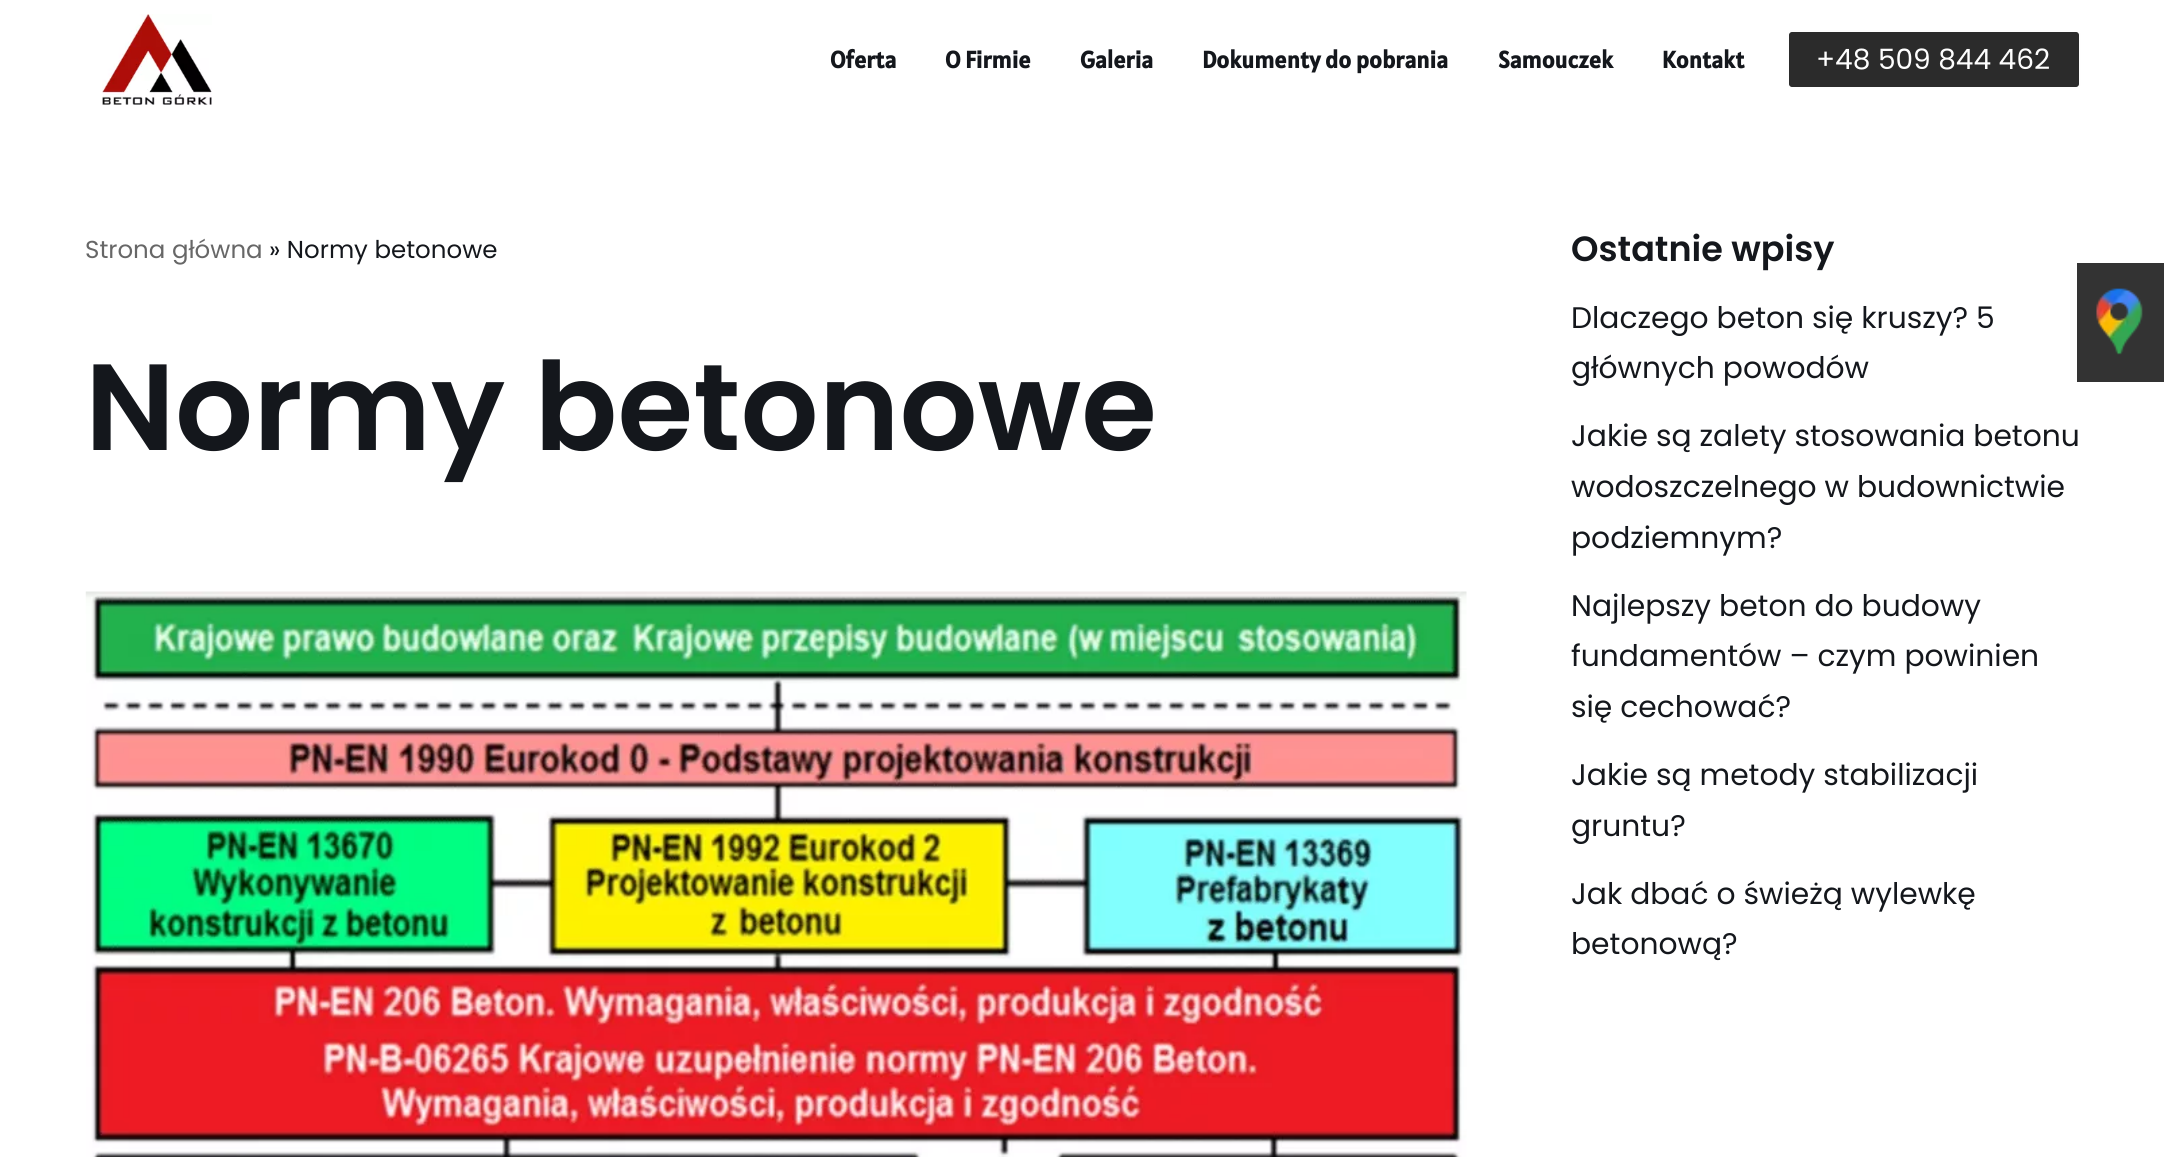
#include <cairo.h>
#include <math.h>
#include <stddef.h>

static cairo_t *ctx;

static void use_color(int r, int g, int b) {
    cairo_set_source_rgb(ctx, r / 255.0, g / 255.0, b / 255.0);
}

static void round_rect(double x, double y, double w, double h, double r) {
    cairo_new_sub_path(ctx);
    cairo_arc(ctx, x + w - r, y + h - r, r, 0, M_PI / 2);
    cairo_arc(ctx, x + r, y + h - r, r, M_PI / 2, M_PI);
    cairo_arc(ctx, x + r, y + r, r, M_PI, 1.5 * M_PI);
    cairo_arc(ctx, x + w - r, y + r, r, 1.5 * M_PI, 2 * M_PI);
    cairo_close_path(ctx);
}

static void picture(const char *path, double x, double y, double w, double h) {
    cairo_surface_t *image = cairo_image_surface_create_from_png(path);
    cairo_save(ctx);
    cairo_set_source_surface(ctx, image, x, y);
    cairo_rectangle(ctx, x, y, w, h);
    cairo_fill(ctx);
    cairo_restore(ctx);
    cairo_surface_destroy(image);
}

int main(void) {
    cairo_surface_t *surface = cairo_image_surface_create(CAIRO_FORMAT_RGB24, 2164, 1157);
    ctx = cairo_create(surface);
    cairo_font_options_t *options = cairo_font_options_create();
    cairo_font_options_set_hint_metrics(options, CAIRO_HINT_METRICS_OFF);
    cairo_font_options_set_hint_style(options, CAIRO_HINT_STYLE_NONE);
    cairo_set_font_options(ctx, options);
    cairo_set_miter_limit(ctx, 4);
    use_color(255, 255, 255);
    cairo_paint(ctx);
    picture("img1.png", 102, 14, 110, 91);
    cairo_select_font_face(ctx, "Alatsi", CAIRO_FONT_SLANT_NORMAL, CAIRO_FONT_WEIGHT_BOLD);
    cairo_set_font_size(ctx, 23.75);
    use_color(20, 23, 28);
    cairo_move_to(ctx, 830, 68);
    cairo_show_text(ctx, "Oferta");
    cairo_move_to(ctx, 945, 68);
    cairo_show_text(ctx, "O Firmie");
    cairo_move_to(ctx, 1080, 68);
    cairo_show_text(ctx, "Galeria");
    cairo_move_to(ctx, 1202, 68);
    cairo_show_text(ctx, "Dokumenty do pobrania");
    cairo_move_to(ctx, 1498, 68);
    cairo_show_text(ctx, "Samouczek");
    cairo_move_to(ctx, 1662, 68);
    cairo_show_text(ctx, "Kontakt");
    use_color(43, 43, 43);
    round_rect(1788, 31, 292, 57, 4);
    cairo_fill_preserve(ctx);
    use_color(254, 254, 254);
    cairo_stroke(ctx);
    cairo_select_font_face(ctx, "Poppins", CAIRO_FONT_SLANT_NORMAL, CAIRO_FONT_WEIGHT_NORMAL);
    cairo_set_font_size(ctx, 28);
    cairo_move_to(ctx, 1816, 69);
    cairo_show_text(ctx, "+48 509 844 462");
    cairo_set_font_size(ctx, 24.5);
    use_color(103, 103, 103);
    cairo_move_to(ctx, 85, 258);
    cairo_show_text(ctx, "Strona główna");
    use_color(20, 23, 28);
    cairo_move_to(ctx, 269, 258);
    cairo_show_text(ctx, "» Normy betonowe");
    cairo_select_font_face(ctx, "Poppins SemiBold", CAIRO_FONT_SLANT_NORMAL, CAIRO_FONT_WEIGHT_NORMAL);
    cairo_set_font_size(ctx, 122.5);
    cairo_move_to(ctx, 85, 450);
    cairo_show_text(ctx, "Normy betonowe");
    picture("img2.png", 85, 591, 1382, 566);
    cairo_set_font_size(ctx, 35);
    cairo_move_to(ctx, 1571, 261);
    cairo_show_text(ctx, "Ostatnie wpisy");
    cairo_select_font_face(ctx, "Poppins", CAIRO_FONT_SLANT_NORMAL, CAIRO_FONT_WEIGHT_NORMAL);
    cairo_set_font_size(ctx, 29.75);
    cairo_move_to(ctx, 1571, 328);
    cairo_show_text(ctx, "Dlaczego beton się kruszy? 5");
    cairo_move_to(ctx, 1571, 378);
    cairo_show_text(ctx, "głównych powodów");
    cairo_move_to(ctx, 1571, 446);
    cairo_show_text(ctx, "Jakie są zalety stosowania betonu");
    cairo_move_to(ctx, 1571, 497);
    cairo_show_text(ctx, "wodoszczelnego w budownictwie");
    cairo_move_to(ctx, 1571, 548);
    cairo_show_text(ctx, "podziemnym?");
    cairo_move_to(ctx, 1571, 616);
    cairo_show_text(ctx, "Najlepszy beton do budowy");
    cairo_move_to(ctx, 1571, 666);
    cairo_show_text(ctx, "fundamentów – czym powinien");
    cairo_move_to(ctx, 1571, 717);
    cairo_show_text(ctx, "się cechować?");
    cairo_move_to(ctx, 1571, 785);
    cairo_show_text(ctx, "Jakie są metody stabilizacji");
    cairo_move_to(ctx, 1571, 836);
    cairo_show_text(ctx, "gruntu?");
    cairo_move_to(ctx, 1571, 904);
    cairo_show_text(ctx, "Jak dbać o świeżą wylewkę");
    cairo_move_to(ctx, 1571, 954);
    cairo_show_text(ctx, "betonową?");
    use_color(51, 51, 51);
    cairo_rectangle(ctx, 2077, 263, 87, 119);
    cairo_fill(ctx);
    picture("img3.png", 2096, 288, 47, 67);
    cairo_surface_write_to_png(surface, "result.png");
    cairo_font_options_destroy(options);
    cairo_destroy(ctx);
    cairo_surface_destroy(surface);
    return 0;
}
